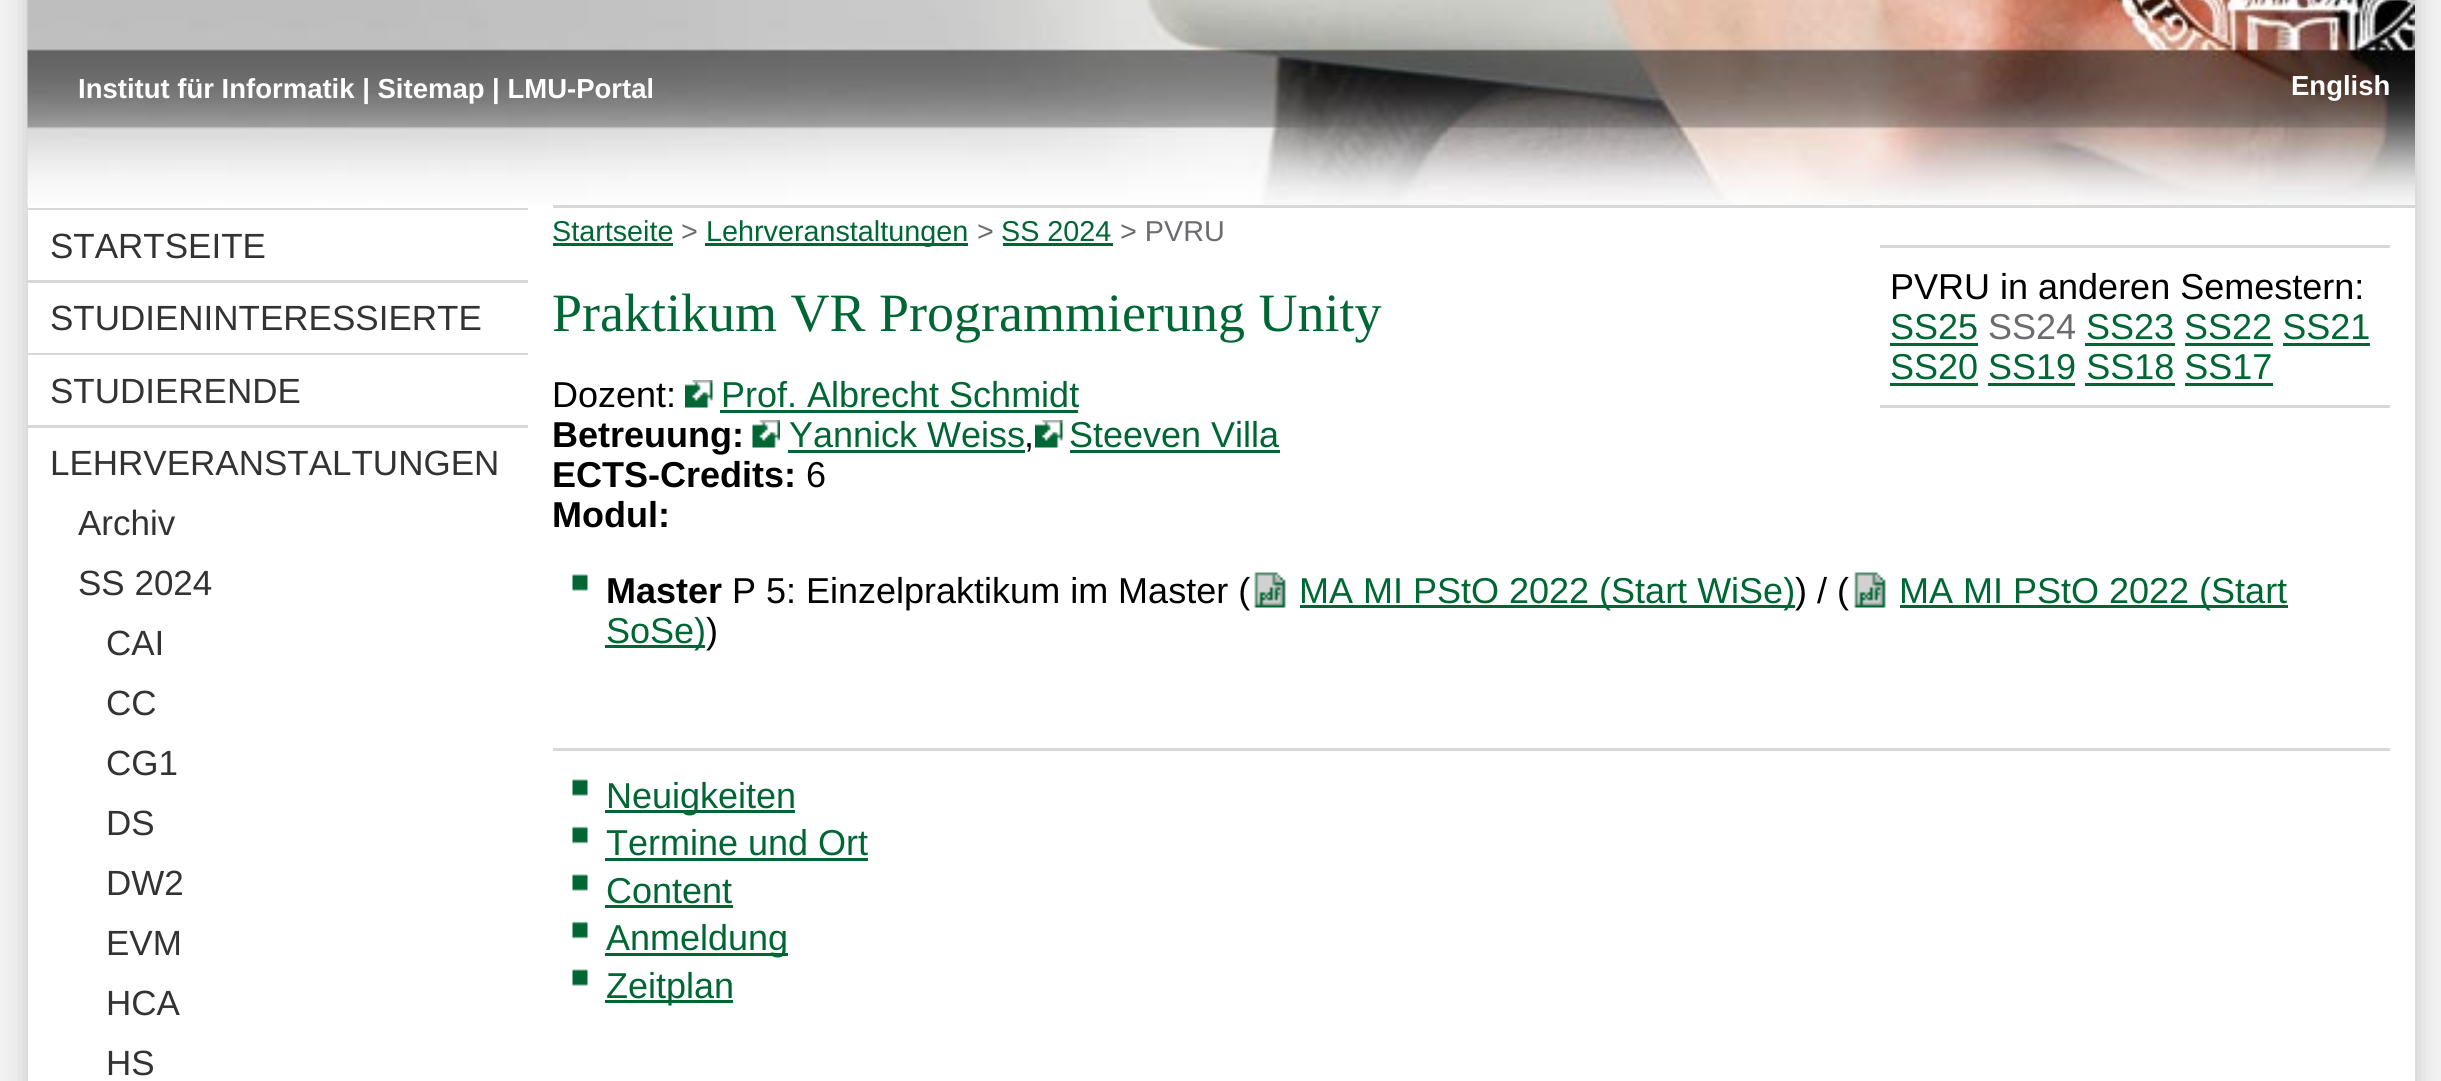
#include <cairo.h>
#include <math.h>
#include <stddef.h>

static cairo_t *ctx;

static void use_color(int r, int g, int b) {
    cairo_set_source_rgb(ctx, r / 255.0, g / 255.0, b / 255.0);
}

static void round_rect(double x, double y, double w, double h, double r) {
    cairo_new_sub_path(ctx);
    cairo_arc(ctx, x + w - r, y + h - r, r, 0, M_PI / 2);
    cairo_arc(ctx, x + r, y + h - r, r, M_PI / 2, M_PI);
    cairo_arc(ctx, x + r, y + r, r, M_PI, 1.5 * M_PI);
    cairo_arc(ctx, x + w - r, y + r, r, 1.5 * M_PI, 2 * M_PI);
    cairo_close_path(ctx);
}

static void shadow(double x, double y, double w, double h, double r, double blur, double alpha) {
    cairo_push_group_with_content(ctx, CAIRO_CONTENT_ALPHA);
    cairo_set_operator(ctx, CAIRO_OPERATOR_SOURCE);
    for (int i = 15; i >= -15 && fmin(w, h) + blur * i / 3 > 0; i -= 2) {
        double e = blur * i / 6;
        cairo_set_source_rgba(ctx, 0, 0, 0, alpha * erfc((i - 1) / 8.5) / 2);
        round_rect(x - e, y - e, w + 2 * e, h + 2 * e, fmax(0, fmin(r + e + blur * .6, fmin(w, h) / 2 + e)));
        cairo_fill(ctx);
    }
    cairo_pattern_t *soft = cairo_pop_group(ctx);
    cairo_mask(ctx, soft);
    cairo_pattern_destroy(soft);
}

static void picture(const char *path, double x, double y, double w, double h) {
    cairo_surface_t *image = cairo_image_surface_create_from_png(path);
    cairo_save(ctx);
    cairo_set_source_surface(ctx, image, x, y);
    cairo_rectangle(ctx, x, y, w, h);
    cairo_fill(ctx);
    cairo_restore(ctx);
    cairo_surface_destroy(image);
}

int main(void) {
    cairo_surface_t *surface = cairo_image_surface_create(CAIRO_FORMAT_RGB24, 2441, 1081);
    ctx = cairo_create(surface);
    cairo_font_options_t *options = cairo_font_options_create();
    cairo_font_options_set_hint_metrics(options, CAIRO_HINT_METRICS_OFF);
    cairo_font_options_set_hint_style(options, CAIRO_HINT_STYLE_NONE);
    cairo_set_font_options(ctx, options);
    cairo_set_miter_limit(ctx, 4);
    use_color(242, 242, 242);
    cairo_paint(ctx);
    use_color(195, 195, 195);
    shadow(28, -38, 2387, 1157, 0, 12.5, 1);
    use_color(255, 255, 255);
    cairo_rectangle(ctx, 28, 205, 2387, 876);
    cairo_fill(ctx);
    picture("img1.png", 27, 0, 2388, 205);
    cairo_select_font_face(ctx, "Liberation Sans", CAIRO_FONT_SLANT_NORMAL, CAIRO_FONT_WEIGHT_BOLD);
    cairo_set_font_size(ctx, 27.5);
    cairo_move_to(ctx, 78, 98);
    cairo_show_text(ctx, "Institut für Informatik | Sitemap | LMU-Portal");
    cairo_move_to(ctx, 2291, 95);
    cairo_show_text(ctx, "English");
    use_color(216, 216, 216);
    cairo_rectangle(ctx, 28, 208, 500, 2);
    cairo_fill(ctx);
    cairo_select_font_face(ctx, "Liberation Sans", CAIRO_FONT_SLANT_NORMAL, CAIRO_FONT_WEIGHT_NORMAL);
    cairo_set_font_size(ctx, 35);
    use_color(51, 51, 51);
    cairo_move_to(ctx, 50, 258);
    cairo_show_text(ctx, "STARTSEITE");
    use_color(216, 216, 216);
    cairo_rectangle(ctx, 28, 280, 500, 3);
    cairo_fill(ctx);
    use_color(51, 51, 51);
    cairo_move_to(ctx, 50, 330);
    cairo_show_text(ctx, "STUDIENINTERESSIERTE");
    use_color(216, 216, 216);
    cairo_rectangle(ctx, 28, 353, 500, 2);
    cairo_fill(ctx);
    use_color(51, 51, 51);
    cairo_move_to(ctx, 50, 403);
    cairo_show_text(ctx, "STUDIERENDE");
    use_color(216, 216, 216);
    cairo_rectangle(ctx, 28, 425, 500, 3);
    cairo_fill(ctx);
    use_color(51, 51, 51);
    cairo_move_to(ctx, 50, 475);
    cairo_show_text(ctx, "LEHRVERANSTALTUNGEN");
    cairo_move_to(ctx, 78, 535);
    cairo_show_text(ctx, "Archiv");
    cairo_move_to(ctx, 78, 595);
    cairo_show_text(ctx, "SS 2024");
    cairo_move_to(ctx, 106, 655);
    cairo_show_text(ctx, "CAI");
    cairo_move_to(ctx, 106, 715);
    cairo_show_text(ctx, "CC");
    cairo_move_to(ctx, 106, 775);
    cairo_show_text(ctx, "CG1");
    cairo_move_to(ctx, 106, 835);
    cairo_show_text(ctx, "DS");
    cairo_move_to(ctx, 106, 895);
    cairo_show_text(ctx, "DW2");
    cairo_move_to(ctx, 106, 955);
    cairo_show_text(ctx, "EVM");
    cairo_move_to(ctx, 106, 1015);
    cairo_show_text(ctx, "HCA");
    cairo_move_to(ctx, 106, 1075);
    cairo_show_text(ctx, "HS");
    use_color(216, 216, 216);
    cairo_rectangle(ctx, 553, 205, 1862, 3);
    cairo_fill(ctx);
    cairo_set_font_size(ctx, 28.75);
    use_color(0, 102, 51);
    cairo_move_to(ctx, 552, 241);
    cairo_show_text(ctx, "Startseite");
    cairo_rectangle(ctx, 553, 243, 120, 3);
    cairo_fill(ctx);
    use_color(107, 108, 111);
    cairo_move_to(ctx, 681, 241);
    cairo_show_text(ctx, ">");
    use_color(0, 102, 51);
    cairo_rectangle(ctx, 705, 243, 263, 3);
    cairo_fill(ctx);
    cairo_move_to(ctx, 706, 241);
    cairo_show_text(ctx, "Lehrveranstaltungen");
    use_color(107, 108, 111);
    cairo_move_to(ctx, 977, 241);
    cairo_show_text(ctx, ">");
    use_color(0, 102, 51);
    cairo_move_to(ctx, 1001, 241);
    cairo_show_text(ctx, "SS 2024");
    cairo_rectangle(ctx, 1003, 243, 110, 3);
    cairo_fill(ctx);
    use_color(107, 108, 111);
    cairo_move_to(ctx, 1120, 241);
    cairo_show_text(ctx, "> PVRU");
    cairo_select_font_face(ctx, "Liberation Serif", CAIRO_FONT_SLANT_NORMAL, CAIRO_FONT_WEIGHT_NORMAL);
    cairo_set_font_size(ctx, 54);
    use_color(0, 102, 51);
    cairo_move_to(ctx, 552, 331);
    cairo_show_text(ctx, "Praktikum VR Programmierung Unity");
    use_color(216, 216, 216);
    cairo_rectangle(ctx, 1880, 245, 510, 3);
    cairo_fill(ctx);
    cairo_rectangle(ctx, 1880, 405, 510, 3);
    cairo_fill(ctx);
    cairo_select_font_face(ctx, "Liberation Sans", CAIRO_FONT_SLANT_NORMAL, CAIRO_FONT_WEIGHT_NORMAL);
    cairo_set_font_size(ctx, 36);
    use_color(0, 0, 0);
    cairo_move_to(ctx, 1890, 299);
    cairo_show_text(ctx, "PVRU in anderen Semestern:");
    use_color(0, 102, 51);
    cairo_move_to(ctx, 1890, 339);
    cairo_show_text(ctx, "SS25");
    cairo_rectangle(ctx, 1890, 343, 88, 3);
    cairo_fill(ctx);
    use_color(107, 108, 111);
    cairo_move_to(ctx, 1988, 339);
    cairo_show_text(ctx, "SS24");
    use_color(0, 102, 51);
    cairo_move_to(ctx, 2086, 339);
    cairo_show_text(ctx, "SS23 SS22 SS21");
    cairo_rectangle(ctx, 2085, 343, 90, 3);
    cairo_fill(ctx);
    cairo_rectangle(ctx, 2185, 343, 88, 3);
    cairo_fill(ctx);
    cairo_rectangle(ctx, 2283, 343, 87, 3);
    cairo_fill(ctx);
    cairo_move_to(ctx, 1890, 379);
    cairo_show_text(ctx, "SS20 SS19 SS18 SS17");
    cairo_rectangle(ctx, 1890, 383, 88, 3);
    cairo_fill(ctx);
    cairo_rectangle(ctx, 1988, 383, 87, 3);
    cairo_fill(ctx);
    cairo_rectangle(ctx, 2085, 383, 90, 3);
    cairo_fill(ctx);
    cairo_rectangle(ctx, 2185, 383, 88, 3);
    cairo_fill(ctx);
    use_color(0, 0, 0);
    cairo_move_to(ctx, 552, 407);
    cairo_show_text(ctx, "Dozent:");
    picture("img2.png", 685, 380, 28, 28);
    use_color(0, 102, 51);
    cairo_move_to(ctx, 721, 407);
    cairo_show_text(ctx, "Prof. Albrecht Schmidt");
    cairo_rectangle(ctx, 720, 410, 358, 3);
    cairo_fill(ctx);
    cairo_select_font_face(ctx, "Liberation Sans", CAIRO_FONT_SLANT_NORMAL, CAIRO_FONT_WEIGHT_BOLD);
    use_color(0, 0, 0);
    cairo_move_to(ctx, 552, 447);
    cairo_show_text(ctx, "Betreuung:");
    picture("img3.png", 752, 420, 28, 28);
    cairo_select_font_face(ctx, "Liberation Sans", CAIRO_FONT_SLANT_NORMAL, CAIRO_FONT_WEIGHT_NORMAL);
    use_color(0, 102, 51);
    cairo_move_to(ctx, 789, 447);
    cairo_show_text(ctx, "Yannick Weiss");
    cairo_rectangle(ctx, 788, 450, 237, 3);
    cairo_fill(ctx);
    use_color(0, 0, 0);
    cairo_move_to(ctx, 1024, 447);
    cairo_show_text(ctx, ",");
    picture("img4.png", 1035, 420, 28, 28);
    use_color(0, 102, 51);
    cairo_move_to(ctx, 1069, 447);
    cairo_show_text(ctx, "Steeven Villa");
    cairo_rectangle(ctx, 1070, 450, 210, 3);
    cairo_fill(ctx);
    cairo_select_font_face(ctx, "Liberation Sans", CAIRO_FONT_SLANT_NORMAL, CAIRO_FONT_WEIGHT_BOLD);
    use_color(0, 0, 0);
    cairo_move_to(ctx, 552, 487);
    cairo_show_text(ctx, "ECTS-Credits:");
    cairo_select_font_face(ctx, "Liberation Sans", CAIRO_FONT_SLANT_NORMAL, CAIRO_FONT_WEIGHT_NORMAL);
    cairo_move_to(ctx, 806, 487);
    cairo_show_text(ctx, "6");
    cairo_select_font_face(ctx, "Liberation Sans", CAIRO_FONT_SLANT_NORMAL, CAIRO_FONT_WEIGHT_BOLD);
    cairo_move_to(ctx, 552, 527);
    cairo_show_text(ctx, "Modul:");
    picture("img5.png", 572, 574, 16, 17);
    cairo_move_to(ctx, 606, 603);
    cairo_show_text(ctx, "Master");
    cairo_select_font_face(ctx, "Liberation Sans", CAIRO_FONT_SLANT_NORMAL, CAIRO_FONT_WEIGHT_NORMAL);
    cairo_move_to(ctx, 732, 603);
    cairo_show_text(ctx, "P 5: Einzelpraktikum im Master (");
    picture("img6.png", 1254, 572, 32, 36);
    use_color(0, 102, 51);
    cairo_rectangle(ctx, 1300, 605, 495, 3);
    cairo_fill(ctx);
    cairo_move_to(ctx, 1299, 603);
    cairo_show_text(ctx, "MA MI PStO 2022 (Start WiSe)");
    use_color(0, 0, 0);
    cairo_move_to(ctx, 1795, 603);
    cairo_show_text(ctx, ") / (");
    picture("img7.png", 1854, 572, 32, 36);
    use_color(0, 102, 51);
    cairo_rectangle(ctx, 1900, 605, 388, 3);
    cairo_fill(ctx);
    cairo_move_to(ctx, 1899, 603);
    cairo_show_text(ctx, "MA MI PStO 2022 (Start");
    cairo_rectangle(ctx, 605, 645, 100, 3);
    cairo_fill(ctx);
    cairo_move_to(ctx, 606, 643);
    cairo_show_text(ctx, "SoSe)");
    use_color(0, 0, 0);
    cairo_move_to(ctx, 706, 643);
    cairo_show_text(ctx, ")");
    use_color(216, 216, 216);
    cairo_rectangle(ctx, 553, 748, 1837, 3);
    cairo_fill(ctx);
    picture("img5.png", 572, 779, 16, 17);
    use_color(0, 102, 51);
    cairo_rectangle(ctx, 605, 810, 190, 3);
    cairo_fill(ctx);
    cairo_move_to(ctx, 606, 808);
    cairo_show_text(ctx, "Neuigkeiten");
    picture("img8.png", 572, 826, 16, 18);
    cairo_move_to(ctx, 606, 855);
    cairo_show_text(ctx, "Termine und Ort");
    cairo_rectangle(ctx, 605, 858, 263, 3);
    cairo_fill(ctx);
    picture("img5.png", 572, 874, 16, 17);
    cairo_move_to(ctx, 606, 903);
    cairo_show_text(ctx, "Content");
    cairo_rectangle(ctx, 605, 905, 128, 3);
    cairo_fill(ctx);
    picture("img8.png", 572, 921, 16, 18);
    cairo_rectangle(ctx, 605, 953, 183, 3);
    cairo_fill(ctx);
    cairo_move_to(ctx, 606, 950);
    cairo_show_text(ctx, "Anmeldung");
    picture("img5.png", 572, 969, 16, 17);
    cairo_rectangle(ctx, 605, 1000, 128, 3);
    cairo_fill(ctx);
    cairo_move_to(ctx, 606, 998);
    cairo_show_text(ctx, "Zeitplan");
    cairo_surface_write_to_png(surface, "result.png");
    cairo_font_options_destroy(options);
    cairo_destroy(ctx);
    cairo_surface_destroy(surface);
    return 0;
}
